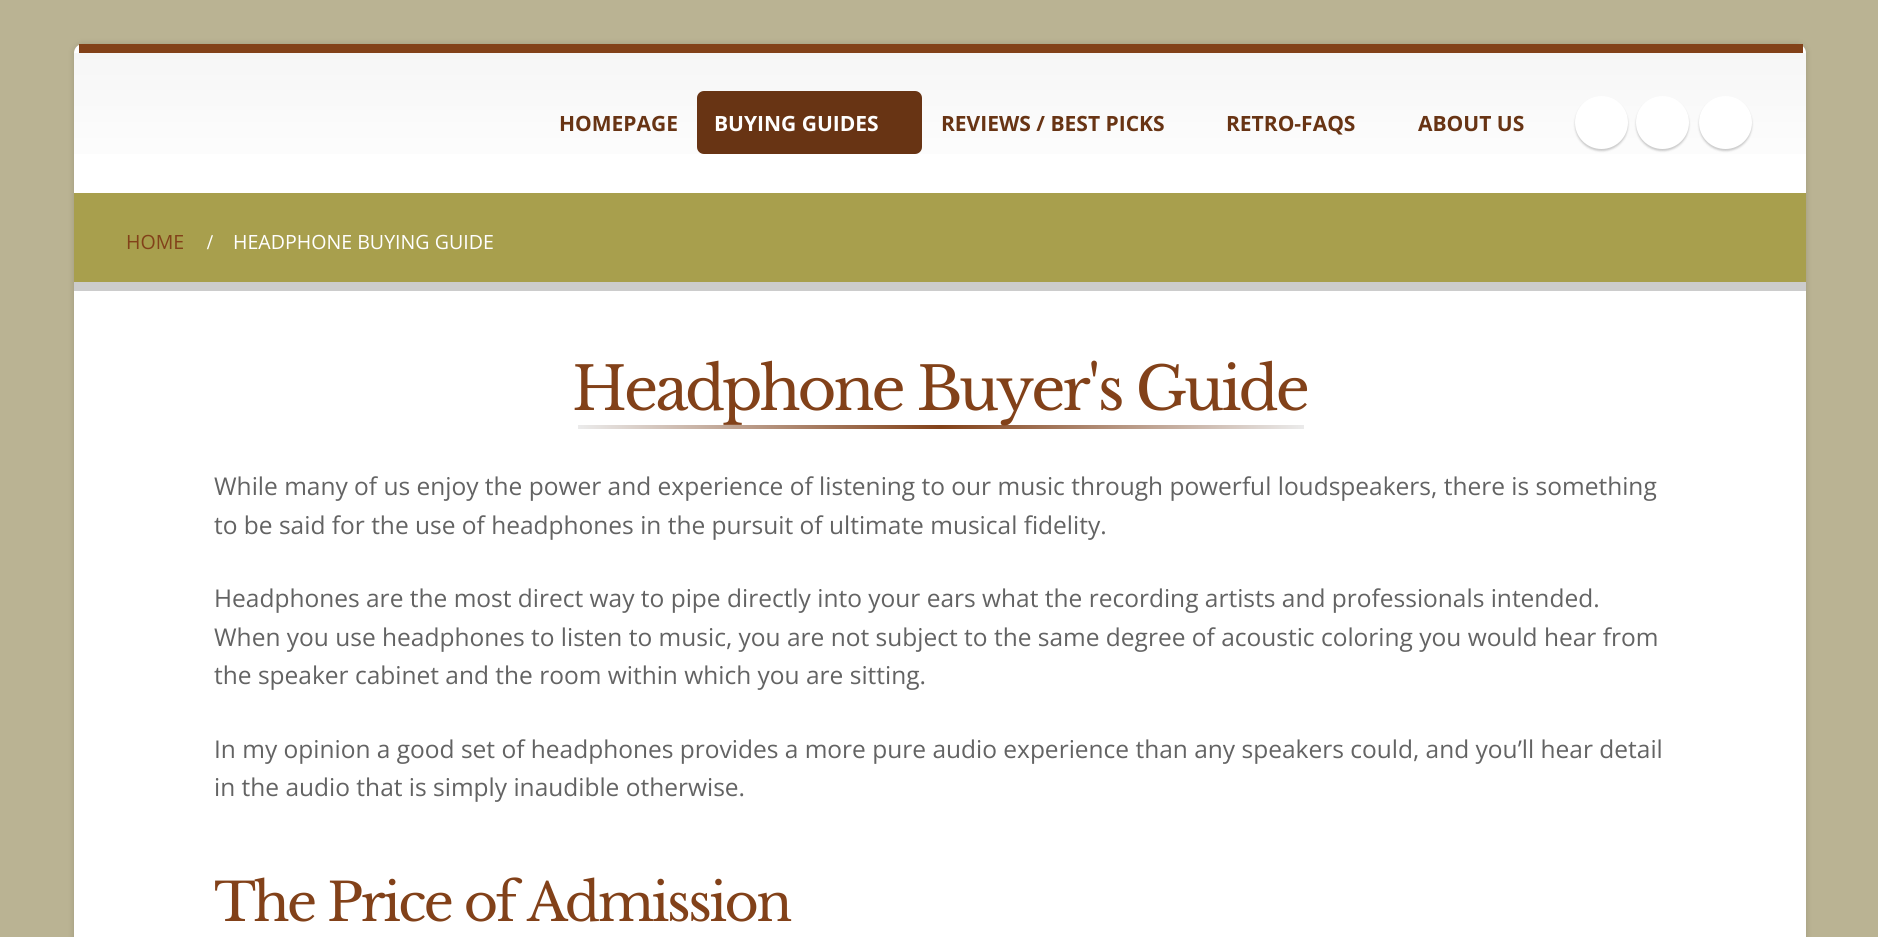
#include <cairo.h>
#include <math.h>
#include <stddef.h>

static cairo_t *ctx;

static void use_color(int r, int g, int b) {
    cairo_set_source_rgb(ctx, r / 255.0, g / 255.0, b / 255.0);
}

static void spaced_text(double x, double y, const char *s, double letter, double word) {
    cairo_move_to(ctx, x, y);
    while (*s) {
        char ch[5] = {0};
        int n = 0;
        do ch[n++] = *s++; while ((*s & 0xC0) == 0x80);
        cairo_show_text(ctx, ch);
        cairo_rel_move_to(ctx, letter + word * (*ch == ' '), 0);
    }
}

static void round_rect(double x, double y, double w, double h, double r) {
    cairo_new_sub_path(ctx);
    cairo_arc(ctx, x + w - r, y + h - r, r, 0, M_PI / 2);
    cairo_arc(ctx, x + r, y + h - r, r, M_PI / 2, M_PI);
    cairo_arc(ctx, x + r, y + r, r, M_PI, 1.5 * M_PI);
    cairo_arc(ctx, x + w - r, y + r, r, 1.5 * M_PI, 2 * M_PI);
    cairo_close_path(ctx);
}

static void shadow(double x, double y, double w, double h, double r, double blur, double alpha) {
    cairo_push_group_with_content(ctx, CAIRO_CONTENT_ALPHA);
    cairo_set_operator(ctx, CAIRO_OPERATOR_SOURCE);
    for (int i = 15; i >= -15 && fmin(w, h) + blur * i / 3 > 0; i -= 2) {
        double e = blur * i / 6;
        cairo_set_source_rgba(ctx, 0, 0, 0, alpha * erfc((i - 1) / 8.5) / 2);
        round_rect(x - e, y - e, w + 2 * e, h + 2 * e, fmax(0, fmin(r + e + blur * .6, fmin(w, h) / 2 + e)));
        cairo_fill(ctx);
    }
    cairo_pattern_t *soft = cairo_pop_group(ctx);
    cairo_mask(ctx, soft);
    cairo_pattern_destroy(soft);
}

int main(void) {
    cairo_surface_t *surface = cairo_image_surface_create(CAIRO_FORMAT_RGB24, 1878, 937);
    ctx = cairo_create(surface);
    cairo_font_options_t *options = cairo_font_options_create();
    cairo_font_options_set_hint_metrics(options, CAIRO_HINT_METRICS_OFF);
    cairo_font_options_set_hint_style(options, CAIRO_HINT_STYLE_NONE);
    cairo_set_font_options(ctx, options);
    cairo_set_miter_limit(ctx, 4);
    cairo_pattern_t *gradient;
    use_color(186, 179, 147);
    cairo_paint(ctx);
    use_color(0, 0, 0);
    shadow(74, 44, 1732, 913, 9, 3.5, 0.15);
    use_color(255, 255, 255);
    round_rect(74, 44, 1732, 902, 9);
    cairo_fill(ctx);
    use_color(130, 65, 25);
    cairo_rectangle(ctx, 79, 44, 1724, 9);
    cairo_fill(ctx);
    gradient = cairo_pattern_create_linear(940, 52, 940, 193);
    cairo_pattern_add_color_stop_rgba(gradient, 0, 0.965, 0.965, 0.965, 1);
    cairo_pattern_add_color_stop_rgba(gradient, 1, 1, 1, 1, 1);
    cairo_set_source(ctx, gradient);
    cairo_pattern_destroy(gradient);
    cairo_rectangle(ctx, 74, 53, 1732, 101);
    cairo_fill(ctx);
    cairo_select_font_face(ctx, "Open Sans", CAIRO_FONT_SLANT_NORMAL, CAIRO_FONT_WEIGHT_BOLD);
    cairo_set_font_size(ctx, 21);
    use_color(104, 52, 20);
    cairo_move_to(ctx, 559, 131);
    cairo_show_text(ctx, "HOMEPAGE");
    round_rect(697, 91, 225, 63, 7);
    cairo_fill(ctx);
    use_color(255, 255, 255);
    cairo_move_to(ctx, 714, 131);
    cairo_show_text(ctx, "BUYING GUIDES");
    use_color(104, 52, 20);
    cairo_move_to(ctx, 941, 131);
    cairo_show_text(ctx, "REVIEWS / BEST PICKS");
    cairo_move_to(ctx, 1226, 131);
    cairo_show_text(ctx, "RETRO-FAQS");
    cairo_move_to(ctx, 1418, 131);
    cairo_show_text(ctx, "ABOUT US");
    use_color(0, 0, 0);
    shadow(1575, 98, 53, 53, 26.5, 1, 0.2);
    use_color(255, 255, 255);
    cairo_arc(ctx, 1601.5, 122.5, 26.5, 0, 2 * M_PI);
    cairo_fill(ctx);
    use_color(0, 0, 0);
    shadow(1636, 98, 53, 53, 26.5, 1, 0.2);
    use_color(255, 255, 255);
    cairo_arc(ctx, 1662.5, 122.5, 26.5, 0, 2 * M_PI);
    cairo_fill(ctx);
    use_color(0, 0, 0);
    shadow(1699, 98, 53, 53, 26.5, 1, 0.2);
    use_color(255, 255, 255);
    cairo_arc(ctx, 1725.5, 122.5, 26.5, 0, 2 * M_PI);
    cairo_fill(ctx);
    use_color(168, 159, 77);
    cairo_rectangle(ctx, 74, 193, 1732, 89);
    cairo_fill(ctx);
    use_color(204, 204, 204);
    cairo_rectangle(ctx, 74, 282, 1732, 9);
    cairo_fill(ctx);
    cairo_select_font_face(ctx, "Open Sans", CAIRO_FONT_SLANT_NORMAL, CAIRO_FONT_WEIGHT_NORMAL);
    cairo_set_font_size(ctx, 19.6);
    use_color(130, 65, 25);
    cairo_move_to(ctx, 126, 249);
    cairo_show_text(ctx, "HOME");
    cairo_select_font_face(ctx, "Liberation Serif", CAIRO_FONT_SLANT_NORMAL, CAIRO_FONT_WEIGHT_BOLD);
    cairo_set_font_size(ctx, 21);
    use_color(255, 255, 255);
    cairo_move_to(ctx, 207, 249);
    cairo_show_text(ctx, "/");
    cairo_select_font_face(ctx, "Open Sans", CAIRO_FONT_SLANT_NORMAL, CAIRO_FONT_WEIGHT_NORMAL);
    cairo_set_font_size(ctx, 19.6);
    cairo_move_to(ctx, 233, 249);
    cairo_show_text(ctx, "HEADPHONE BUYING GUIDE");
    gradient = cairo_pattern_create_linear(578, 427, 1304, 427);
    cairo_pattern_add_color_stop_rgba(gradient, 0, 0.922, 0.922, 0.922, 1);
    cairo_pattern_add_color_stop_rgba(gradient, 0.5, 0.51, 0.255, 0.098, 1);
    cairo_pattern_add_color_stop_rgba(gradient, 1, 0.922, 0.922, 0.922, 1);
    cairo_set_source(ctx, gradient);
    cairo_pattern_destroy(gradient);
    cairo_rectangle(ctx, 578, 425, 726, 4);
    cairo_fill(ctx);
    cairo_select_font_face(ctx, "Libre Baskerville", CAIRO_FONT_SLANT_NORMAL, CAIRO_FONT_WEIGHT_NORMAL);
    cairo_set_font_size(ctx, 59.5);
    use_color(130, 65, 25);
    spaced_text(572, 410, "Headphone Buyer's Guide", -3, 0);
    cairo_select_font_face(ctx, "Open Sans", CAIRO_FONT_SLANT_NORMAL, CAIRO_FONT_WEIGHT_NORMAL);
    cairo_set_font_size(ctx, 24.5);
    use_color(99, 99, 99);
    cairo_move_to(ctx, 214, 495);
    cairo_show_text(ctx, "While many of us enjoy the power and experience of listening to our music through powerful loudspeakers, there is something");
    cairo_move_to(ctx, 214, 534);
    cairo_show_text(ctx, "to be said for the use of headphones in the pursuit of ultimate musical fidelity.");
    cairo_move_to(ctx, 214, 607);
    cairo_show_text(ctx, "Headphones are the most direct way to pipe directly into your ears what the recording artists and professionals intended.");
    cairo_move_to(ctx, 214, 646);
    cairo_show_text(ctx, "When you use headphones to listen to music, you are not subject to the same degree of acoustic coloring you would hear from");
    cairo_move_to(ctx, 214, 684);
    cairo_show_text(ctx, "the speaker cabinet and the room within which you are sitting.");
    cairo_move_to(ctx, 214, 758);
    cairo_show_text(ctx, "In my opinion a good set of headphones provides a more pure audio experience than any speakers could, and you’ll hear detail");
    cairo_move_to(ctx, 214, 796);
    cairo_show_text(ctx, "in the audio that is simply inaudible otherwise.");
    cairo_select_font_face(ctx, "Libre Baskerville", CAIRO_FONT_SLANT_NORMAL, CAIRO_FONT_WEIGHT_NORMAL);
    cairo_set_font_size(ctx, 52.5);
    use_color(130, 65, 25);
    spaced_text(214, 921, "The Price of Admission", -2.6, 0);
    cairo_surface_write_to_png(surface, "result.png");
    cairo_font_options_destroy(options);
    cairo_destroy(ctx);
    cairo_surface_destroy(surface);
    return 0;
}
